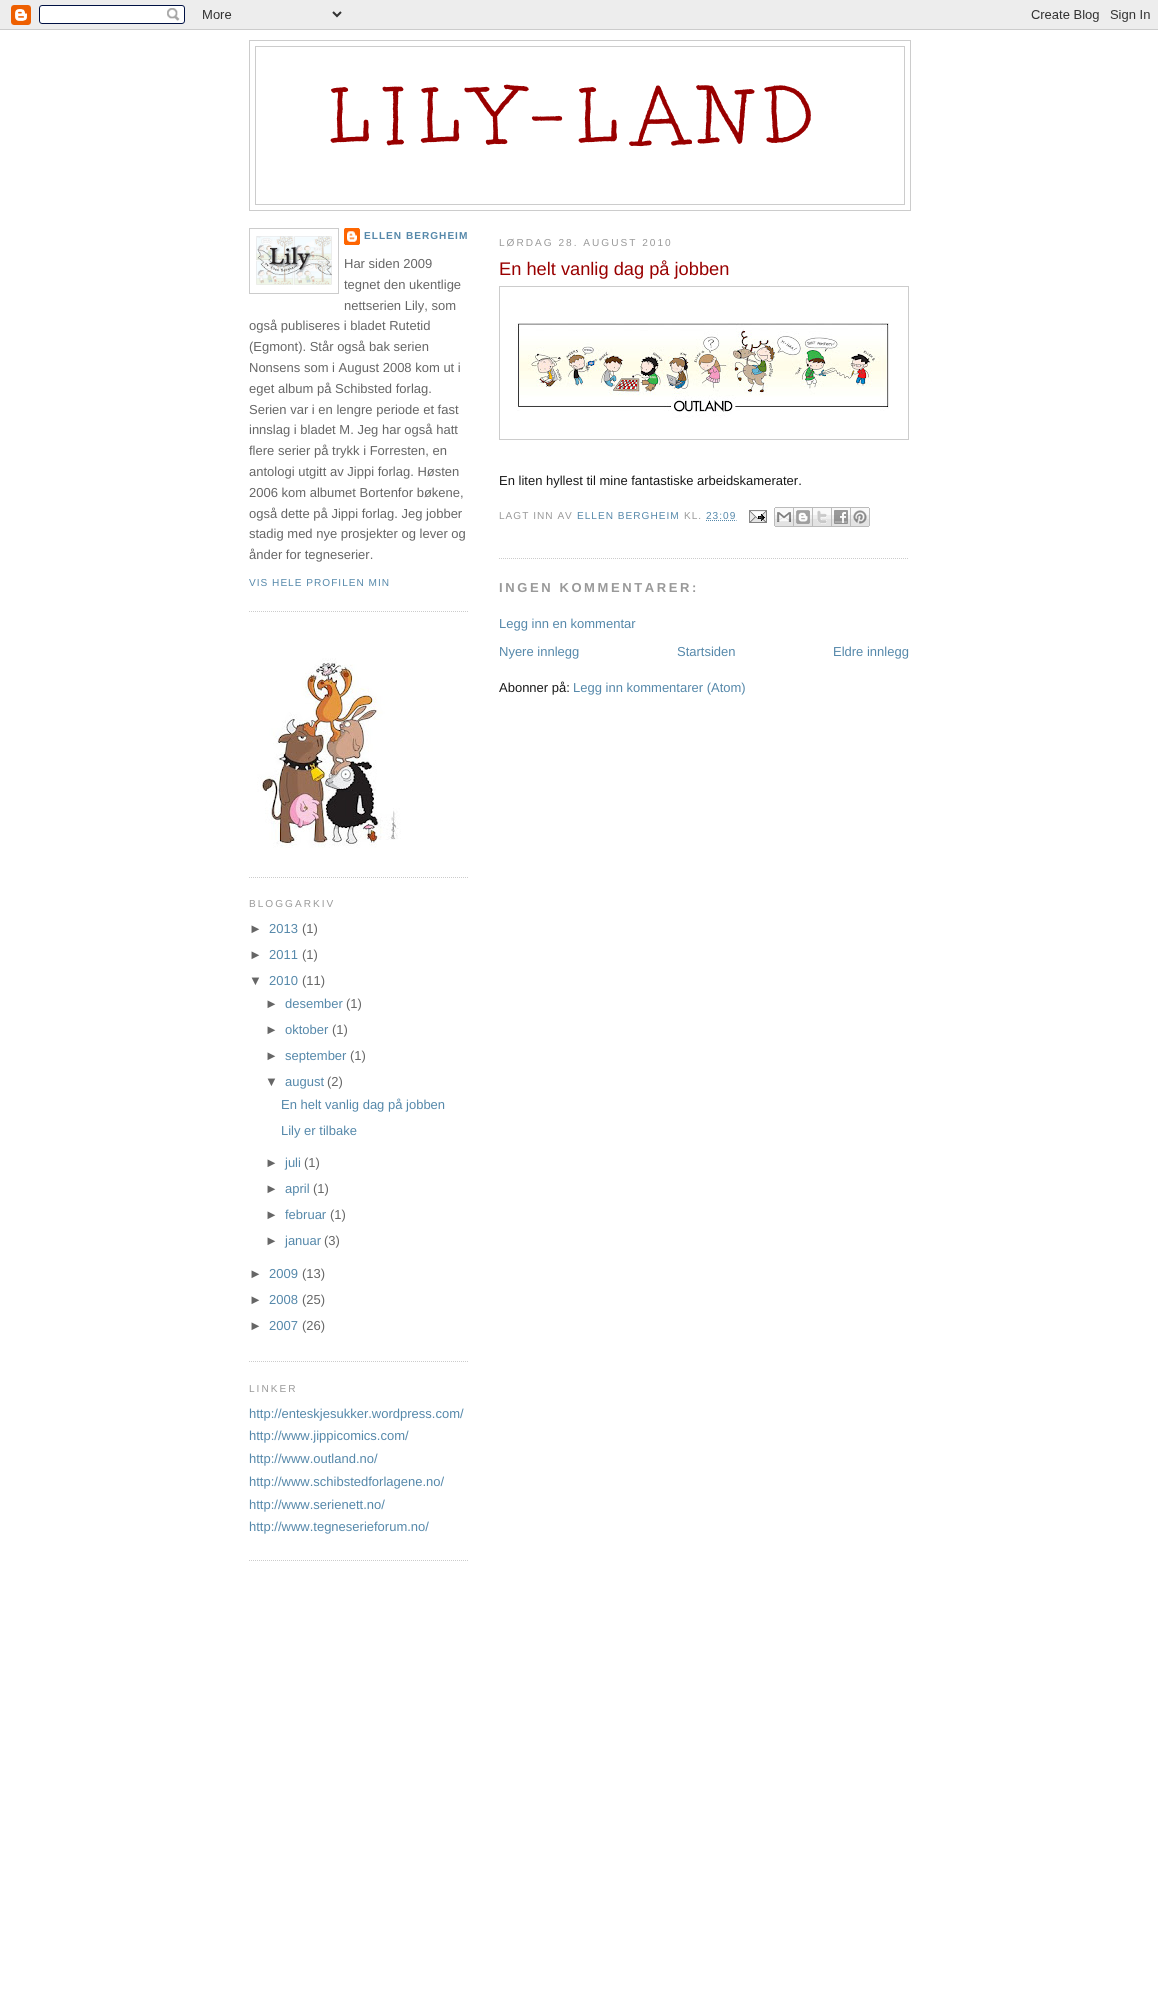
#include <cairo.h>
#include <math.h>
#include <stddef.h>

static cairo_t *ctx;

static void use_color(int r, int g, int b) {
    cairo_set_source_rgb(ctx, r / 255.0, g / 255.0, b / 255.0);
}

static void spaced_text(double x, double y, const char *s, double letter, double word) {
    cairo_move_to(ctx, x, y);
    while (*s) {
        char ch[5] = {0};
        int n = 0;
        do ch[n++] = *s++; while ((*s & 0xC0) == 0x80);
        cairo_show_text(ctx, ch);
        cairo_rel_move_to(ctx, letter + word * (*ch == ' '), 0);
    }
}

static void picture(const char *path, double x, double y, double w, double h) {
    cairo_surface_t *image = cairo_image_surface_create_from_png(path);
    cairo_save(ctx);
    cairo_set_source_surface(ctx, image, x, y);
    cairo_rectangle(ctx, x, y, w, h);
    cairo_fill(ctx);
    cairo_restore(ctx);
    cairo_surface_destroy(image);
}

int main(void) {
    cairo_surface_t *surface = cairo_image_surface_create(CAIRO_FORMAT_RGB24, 1158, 2007);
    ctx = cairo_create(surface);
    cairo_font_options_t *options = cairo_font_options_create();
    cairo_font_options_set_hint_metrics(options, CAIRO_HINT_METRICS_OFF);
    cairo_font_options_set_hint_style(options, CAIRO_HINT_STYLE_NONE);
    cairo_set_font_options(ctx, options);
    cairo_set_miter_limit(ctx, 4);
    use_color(255, 255, 255);
    cairo_paint(ctx);
    picture("img1.png", 0, 0, 1158, 30);
    cairo_rectangle(ctx, 249.5, 40.5, 661, 170);
    use_color(204, 204, 204);
    cairo_set_line_width(ctx, 1);
    cairo_stroke(ctx);
    cairo_rectangle(ctx, 255.5, 46.5, 649, 158);
    cairo_stroke(ctx);
    cairo_select_font_face(ctx, "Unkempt", CAIRO_FONT_SLANT_NORMAL, CAIRO_FONT_WEIGHT_NORMAL);
    cairo_set_font_size(ctx, 80);
    use_color(153, 0, 0);
    spaced_text(331, 144, "LILY-LAND", 16, 0);
    cairo_new_path(ctx);
    cairo_move_to(ctx, 249, 611.5);
    cairo_line_to(ctx, 469, 611.5);
    use_color(204, 204, 204);
    cairo_set_dash(ctx, (double[]){1, 1}, 2, 0);
    cairo_stroke(ctx);
    cairo_rectangle(ctx, 249.5, 228.5, 89, 65);
    cairo_set_dash(ctx, NULL, 0, 0);
    cairo_stroke(ctx);
    picture("img2.png", 256, 236, 76, 49);
    picture("img3.png", 344, 228, 16, 17);
    cairo_select_font_face(ctx, "Liberation Sans", CAIRO_FONT_SLANT_NORMAL, CAIRO_FONT_WEIGHT_BOLD);
    cairo_set_font_size(ctx, 10.1);
    use_color(85, 136, 170);
    spaced_text(364, 239, "ELLEN BERGHEIM", 1, 0);
    cairo_select_font_face(ctx, "Liberation Sans", CAIRO_FONT_SLANT_NORMAL, CAIRO_FONT_WEIGHT_NORMAL);
    cairo_set_font_size(ctx, 13);
    use_color(102, 102, 102);
    cairo_move_to(ctx, 344, 268);
    cairo_show_text(ctx, "Har siden 2009");
    cairo_move_to(ctx, 344, 289);
    cairo_show_text(ctx, "tegnet den ukentlige");
    cairo_move_to(ctx, 344, 310);
    cairo_show_text(ctx, "nettserien Lily, som");
    cairo_move_to(ctx, 249, 330);
    cairo_show_text(ctx, "også publiseres i bladet Rutetid");
    cairo_move_to(ctx, 249, 351);
    cairo_show_text(ctx, "(Egmont). Står også bak serien");
    cairo_move_to(ctx, 249, 372);
    cairo_show_text(ctx, "Nonsens som i August 2008 kom ut i");
    cairo_move_to(ctx, 249, 393);
    cairo_show_text(ctx, "eget album på Schibsted forlag.");
    cairo_move_to(ctx, 249, 414);
    cairo_show_text(ctx, "Serien var i en lengre periode et fast");
    cairo_move_to(ctx, 249, 434);
    cairo_show_text(ctx, "innslag i bladet M. Jeg har også hatt");
    cairo_move_to(ctx, 249, 455);
    cairo_show_text(ctx, "flere serier på trykk i Forresten, en");
    cairo_move_to(ctx, 249, 476);
    cairo_show_text(ctx, "antologi utgitt av Jippi forlag. Høsten");
    cairo_move_to(ctx, 249, 497);
    cairo_show_text(ctx, "2006 kom albumet Bortenfor bøkene,");
    cairo_move_to(ctx, 249, 518);
    cairo_show_text(ctx, "også dette på Jippi forlag. Jeg jobber");
    cairo_move_to(ctx, 249, 538);
    cairo_show_text(ctx, "stadig med nye prosjekter og lever og");
    cairo_move_to(ctx, 249, 559);
    cairo_show_text(ctx, "ånder for tegneserier.");
    cairo_set_font_size(ctx, 10.1);
    use_color(85, 136, 170);
    spaced_text(249, 586, "VIS HELE PROFILEN MIN", 1, 0);
    cairo_new_path(ctx);
    cairo_move_to(ctx, 249, 877.5);
    cairo_line_to(ctx, 469, 877.5);
    use_color(204, 204, 204);
    cairo_set_dash(ctx, (double[]){1, 1}, 2, 0);
    cairo_stroke(ctx);
    picture("img4.png", 257, 658, 144, 190);
    cairo_new_path(ctx);
    cairo_move_to(ctx, 249, 1361.5);
    cairo_line_to(ctx, 469, 1361.5);
    cairo_stroke(ctx);
    use_color(153, 153, 153);
    spaced_text(249, 907, "BLOGGARKIV", 2, 0);
    cairo_set_font_size(ctx, 13);
    use_color(102, 102, 102);
    cairo_move_to(ctx, 249, 933);
    cairo_show_text(ctx, "►");
    use_color(85, 136, 170);
    cairo_move_to(ctx, 269, 933);
    cairo_show_text(ctx, "2013");
    use_color(102, 102, 102);
    cairo_move_to(ctx, 302, 933);
    cairo_show_text(ctx, "(1)");
    cairo_move_to(ctx, 249, 959);
    cairo_show_text(ctx, "►");
    use_color(85, 136, 170);
    cairo_move_to(ctx, 269, 959);
    cairo_show_text(ctx, "2011");
    use_color(102, 102, 102);
    cairo_move_to(ctx, 302, 959);
    cairo_show_text(ctx, "(1)");
    cairo_move_to(ctx, 249, 985);
    cairo_show_text(ctx, "▼");
    use_color(85, 136, 170);
    cairo_move_to(ctx, 269, 985);
    cairo_show_text(ctx, "2010");
    use_color(102, 102, 102);
    cairo_move_to(ctx, 302, 985);
    cairo_show_text(ctx, "(11)");
    cairo_move_to(ctx, 265, 1008);
    cairo_show_text(ctx, "►");
    use_color(85, 136, 170);
    cairo_move_to(ctx, 285, 1008);
    cairo_show_text(ctx, "desember");
    use_color(102, 102, 102);
    cairo_move_to(ctx, 346, 1008);
    cairo_show_text(ctx, "(1)");
    cairo_move_to(ctx, 265, 1034);
    cairo_show_text(ctx, "►");
    use_color(85, 136, 170);
    cairo_move_to(ctx, 285, 1034);
    cairo_show_text(ctx, "oktober");
    use_color(102, 102, 102);
    cairo_move_to(ctx, 332, 1034);
    cairo_show_text(ctx, "(1)");
    cairo_move_to(ctx, 265, 1060);
    cairo_show_text(ctx, "►");
    use_color(85, 136, 170);
    cairo_move_to(ctx, 285, 1060);
    cairo_show_text(ctx, "september");
    use_color(102, 102, 102);
    cairo_move_to(ctx, 350, 1060);
    cairo_show_text(ctx, "(1)");
    cairo_move_to(ctx, 265, 1086);
    cairo_show_text(ctx, "▼");
    use_color(85, 136, 170);
    cairo_move_to(ctx, 285, 1086);
    cairo_show_text(ctx, "august");
    use_color(102, 102, 102);
    cairo_move_to(ctx, 327, 1086);
    cairo_show_text(ctx, "(2)");
    use_color(85, 136, 170);
    cairo_move_to(ctx, 281, 1109);
    cairo_show_text(ctx, "En helt vanlig dag på jobben");
    cairo_move_to(ctx, 281, 1135);
    cairo_show_text(ctx, "Lily er tilbake");
    use_color(102, 102, 102);
    cairo_move_to(ctx, 265, 1167);
    cairo_show_text(ctx, "►");
    use_color(85, 136, 170);
    cairo_move_to(ctx, 285, 1167);
    cairo_show_text(ctx, "juli");
    use_color(102, 102, 102);
    cairo_move_to(ctx, 304, 1167);
    cairo_show_text(ctx, "(1)");
    cairo_move_to(ctx, 265, 1193);
    cairo_show_text(ctx, "►");
    use_color(85, 136, 170);
    cairo_move_to(ctx, 285, 1193);
    cairo_show_text(ctx, "april");
    use_color(102, 102, 102);
    cairo_move_to(ctx, 313, 1193);
    cairo_show_text(ctx, "(1)");
    cairo_move_to(ctx, 265, 1219);
    cairo_show_text(ctx, "►");
    use_color(85, 136, 170);
    cairo_move_to(ctx, 285, 1219);
    cairo_show_text(ctx, "februar");
    use_color(102, 102, 102);
    cairo_move_to(ctx, 330, 1219);
    cairo_show_text(ctx, "(1)");
    cairo_move_to(ctx, 265, 1245);
    cairo_show_text(ctx, "►");
    use_color(85, 136, 170);
    cairo_move_to(ctx, 285, 1245);
    cairo_show_text(ctx, "januar");
    use_color(102, 102, 102);
    cairo_move_to(ctx, 324, 1245);
    cairo_show_text(ctx, "(3)");
    cairo_move_to(ctx, 249, 1278);
    cairo_show_text(ctx, "►");
    use_color(85, 136, 170);
    cairo_move_to(ctx, 269, 1278);
    cairo_show_text(ctx, "2009");
    use_color(102, 102, 102);
    cairo_move_to(ctx, 302, 1278);
    cairo_show_text(ctx, "(13)");
    cairo_move_to(ctx, 249, 1304);
    cairo_show_text(ctx, "►");
    use_color(85, 136, 170);
    cairo_move_to(ctx, 269, 1304);
    cairo_show_text(ctx, "2008");
    use_color(102, 102, 102);
    cairo_move_to(ctx, 302, 1304);
    cairo_show_text(ctx, "(25)");
    cairo_move_to(ctx, 249, 1330);
    cairo_show_text(ctx, "►");
    use_color(85, 136, 170);
    cairo_move_to(ctx, 269, 1330);
    cairo_show_text(ctx, "2007");
    use_color(102, 102, 102);
    cairo_move_to(ctx, 302, 1330);
    cairo_show_text(ctx, "(26)");
    cairo_new_path(ctx);
    cairo_move_to(ctx, 249, 1560.5);
    cairo_line_to(ctx, 469, 1560.5);
    use_color(204, 204, 204);
    cairo_stroke(ctx);
    cairo_set_font_size(ctx, 10.1);
    use_color(153, 153, 153);
    spaced_text(249, 1392, "LINKER", 2, 0);
    cairo_set_font_size(ctx, 13);
    use_color(85, 136, 170);
    cairo_move_to(ctx, 249, 1418);
    cairo_show_text(ctx, "http://enteskjesukker.wordpress.com/");
    cairo_move_to(ctx, 249, 1440);
    cairo_show_text(ctx, "http://www.jippicomics.com/");
    cairo_move_to(ctx, 249, 1463);
    cairo_show_text(ctx, "http://www.outland.no/");
    cairo_move_to(ctx, 249, 1486);
    cairo_show_text(ctx, "http://www.schibstedforlagene.no/");
    cairo_move_to(ctx, 249, 1509);
    cairo_show_text(ctx, "http://www.serienett.no/");
    cairo_move_to(ctx, 249, 1531);
    cairo_show_text(ctx, "http://www.tegneserieforum.no/");
    cairo_set_font_size(ctx, 10.1);
    use_color(153, 153, 153);
    spaced_text(499, 246, "LØRDAG 28. AUGUST 2010", 2, 0);
    cairo_new_path(ctx);
    cairo_move_to(ctx, 499, 558.5);
    cairo_line_to(ctx, 909, 558.5);
    use_color(204, 204, 204);
    cairo_stroke(ctx);
    cairo_set_font_size(ctx, 18.25);
    use_color(153, 0, 0);
    cairo_move_to(ctx, 499, 275);
    cairo_show_text(ctx, "En helt vanlig dag på jobben");
    cairo_rectangle(ctx, 499.5, 286.5, 409, 153);
    use_color(204, 204, 204);
    cairo_set_dash(ctx, NULL, 0, 0);
    cairo_stroke(ctx);
    picture("img5.png", 515, 323, 374, 95);
    cairo_set_font_size(ctx, 13);
    use_color(25, 25, 25);
    cairo_move_to(ctx, 499, 485);
    cairo_show_text(ctx, "En liten hyllest til mine fantastiske arbeidskamerater.");
    cairo_set_font_size(ctx, 10.1);
    use_color(153, 153, 153);
    spaced_text(499, 519, "LAGT INN AV", 1, 0);
    use_color(85, 136, 170);
    spaced_text(577, 519, "ELLEN BERGHEIM", 1, 0);
    use_color(153, 153, 153);
    spaced_text(684, 519, "KL.", 1, 0);
    use_color(85, 136, 170);
    spaced_text(706, 519, "23:09", 1, 0);
    cairo_new_path(ctx);
    cairo_move_to(ctx, 706, 520.5);
    cairo_line_to(ctx, 736.5, 520.5);
    cairo_set_dash(ctx, (double[]){1, 1}, 2, 0);
    cairo_stroke(ctx);
    picture("img6.png", 749, 510, 18, 13);
    picture("img7.png", 774, 507, 20, 20);
    picture("img8.png", 794, 507, 19, 20);
    picture("img9.png", 813, 507, 19, 20);
    picture("img10.png", 832, 507, 19, 20);
    picture("img11.png", 851, 507, 19, 20);
    cairo_select_font_face(ctx, "Liberation Sans", CAIRO_FONT_SLANT_NORMAL, CAIRO_FONT_WEIGHT_BOLD);
    cairo_set_font_size(ctx, 13);
    use_color(153, 153, 153);
    spaced_text(499, 592, "INGEN KOMMENTARER:", 2.6, 0);
    cairo_select_font_face(ctx, "Liberation Sans", CAIRO_FONT_SLANT_NORMAL, CAIRO_FONT_WEIGHT_NORMAL);
    use_color(85, 136, 170);
    cairo_move_to(ctx, 499, 628);
    cairo_show_text(ctx, "Legg inn en kommentar");
    cairo_move_to(ctx, 499, 656);
    cairo_show_text(ctx, "Nyere innlegg");
    cairo_move_to(ctx, 677, 656);
    cairo_show_text(ctx, "Startsiden");
    cairo_move_to(ctx, 833, 656);
    cairo_show_text(ctx, "Eldre innlegg");
    use_color(25, 25, 25);
    cairo_move_to(ctx, 499, 692);
    cairo_show_text(ctx, "Abonner på:");
    use_color(85, 136, 170);
    cairo_move_to(ctx, 573, 692);
    cairo_show_text(ctx, "Legg inn kommentarer (Atom)");
    cairo_surface_write_to_png(surface, "result.png");
    cairo_font_options_destroy(options);
    cairo_destroy(ctx);
    cairo_surface_destroy(surface);
    return 0;
}
